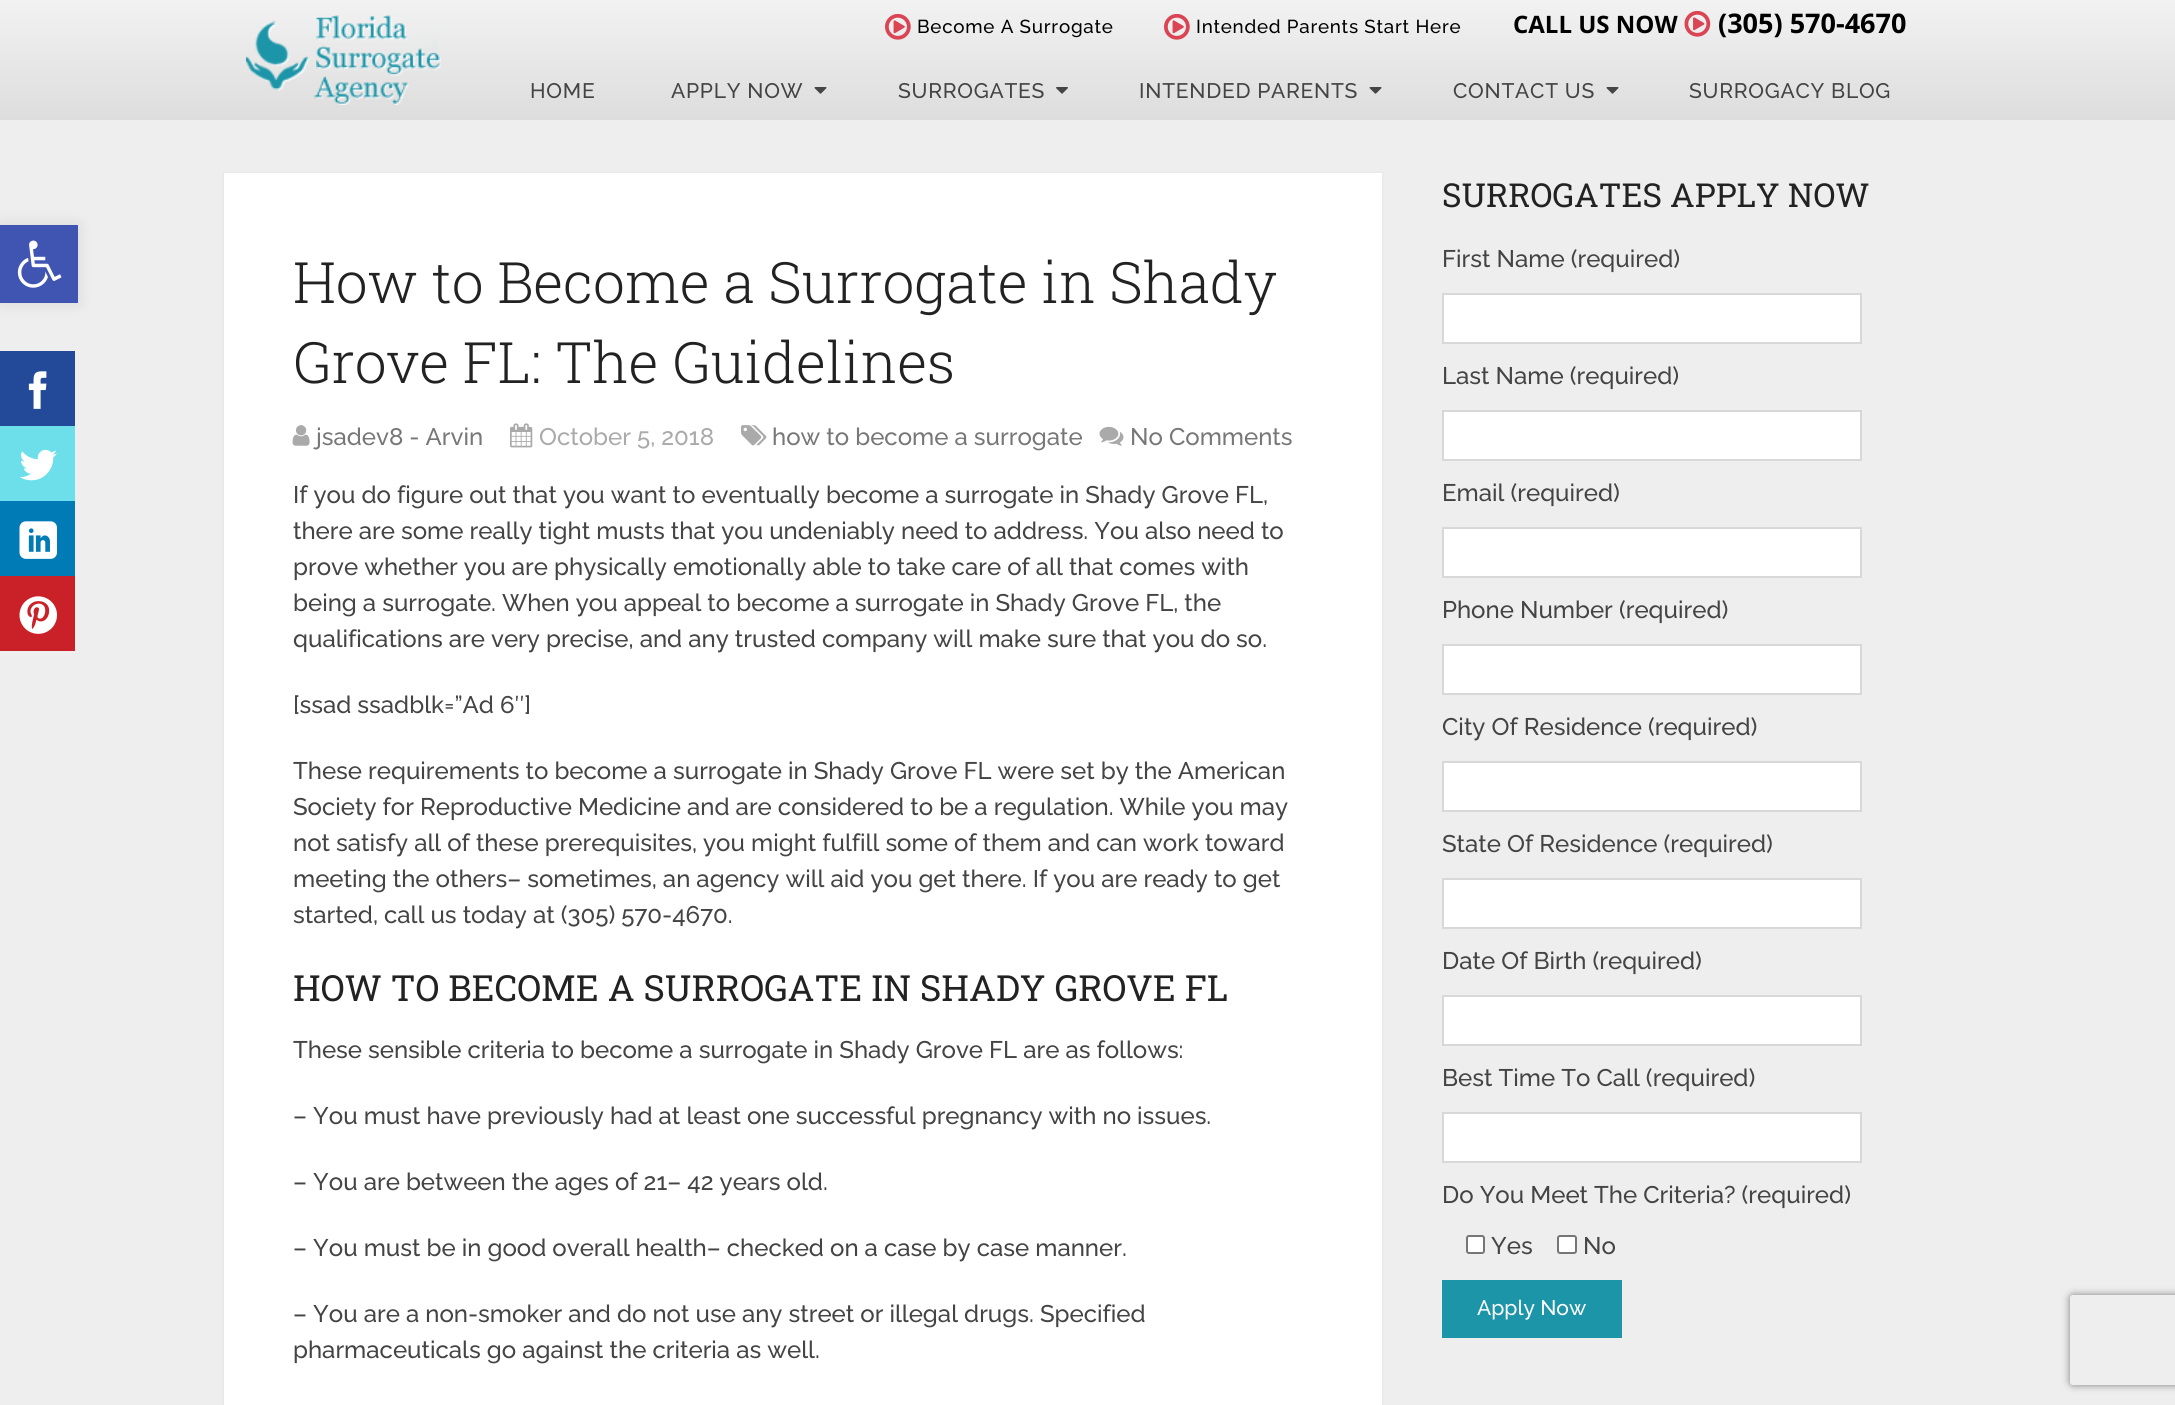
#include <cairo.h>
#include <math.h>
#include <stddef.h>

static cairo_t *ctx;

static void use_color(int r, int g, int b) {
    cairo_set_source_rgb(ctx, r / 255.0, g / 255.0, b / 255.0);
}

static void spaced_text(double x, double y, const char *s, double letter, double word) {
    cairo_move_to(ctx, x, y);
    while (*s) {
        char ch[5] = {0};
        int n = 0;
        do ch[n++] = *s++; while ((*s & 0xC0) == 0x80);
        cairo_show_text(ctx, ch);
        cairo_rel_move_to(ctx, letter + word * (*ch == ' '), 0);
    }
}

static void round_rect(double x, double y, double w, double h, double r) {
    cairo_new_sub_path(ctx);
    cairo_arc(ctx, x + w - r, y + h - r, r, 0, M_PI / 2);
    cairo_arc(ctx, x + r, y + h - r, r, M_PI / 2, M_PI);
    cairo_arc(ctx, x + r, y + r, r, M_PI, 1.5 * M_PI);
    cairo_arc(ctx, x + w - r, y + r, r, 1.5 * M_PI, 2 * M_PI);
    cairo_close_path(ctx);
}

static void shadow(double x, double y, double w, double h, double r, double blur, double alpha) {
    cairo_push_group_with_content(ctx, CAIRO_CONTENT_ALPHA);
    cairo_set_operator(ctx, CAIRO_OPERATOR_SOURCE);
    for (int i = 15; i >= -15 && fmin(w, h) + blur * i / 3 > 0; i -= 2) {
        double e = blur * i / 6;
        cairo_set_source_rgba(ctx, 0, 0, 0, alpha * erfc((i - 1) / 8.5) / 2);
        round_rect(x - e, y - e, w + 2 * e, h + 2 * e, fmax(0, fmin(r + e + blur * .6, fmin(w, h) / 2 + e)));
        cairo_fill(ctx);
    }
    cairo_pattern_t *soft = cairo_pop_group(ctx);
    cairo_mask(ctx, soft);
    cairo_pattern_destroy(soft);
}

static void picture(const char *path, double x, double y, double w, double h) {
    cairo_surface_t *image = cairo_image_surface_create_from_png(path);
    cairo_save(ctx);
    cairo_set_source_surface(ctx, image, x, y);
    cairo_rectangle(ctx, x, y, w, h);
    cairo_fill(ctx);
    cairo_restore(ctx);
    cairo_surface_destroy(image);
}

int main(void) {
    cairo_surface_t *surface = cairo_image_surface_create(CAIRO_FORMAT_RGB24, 2175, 1405);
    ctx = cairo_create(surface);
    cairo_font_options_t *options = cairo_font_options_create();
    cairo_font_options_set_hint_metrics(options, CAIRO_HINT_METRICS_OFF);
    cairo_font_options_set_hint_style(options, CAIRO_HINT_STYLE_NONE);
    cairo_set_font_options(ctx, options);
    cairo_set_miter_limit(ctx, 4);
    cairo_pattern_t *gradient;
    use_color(238, 238, 238);
    cairo_paint(ctx);
    use_color(0, 0, 0);
    shadow(0, 225, 78, 78, 0, 7.5, 0.1);
    use_color(64, 84, 178);
    cairo_rectangle(ctx, 0, 225, 78, 78);
    cairo_fill(ctx);
    picture("img1.png", 17, 240, 45, 48);
    gradient = cairo_pattern_create_linear(1088, 0, 1088, 120);
    cairo_pattern_add_color_stop_rgba(gradient, 0, 0.949, 0.949, 0.949, 1);
    cairo_pattern_add_color_stop_rgba(gradient, 1, 0.867, 0.867, 0.867, 1);
    cairo_set_source(ctx, gradient);
    cairo_pattern_destroy(gradient);
    cairo_rectangle(ctx, 0, 0, 2175, 120);
    cairo_fill(ctx);
    picture("img2.png", 885, 13, 26, 27);
    cairo_select_font_face(ctx, "Raleway Medium", CAIRO_FONT_SLANT_NORMAL, CAIRO_FONT_WEIGHT_NORMAL);
    cairo_set_font_size(ctx, 18.75);
    use_color(0, 0, 0);
    spaced_text(917, 33, "Become A Surrogate", 0.75, 0);
    picture("img2.png", 1164, 13, 26, 27);
    spaced_text(1196, 33, "Intended Parents Start Here", 0.75, 0);
    cairo_select_font_face(ctx, "Open Sans", CAIRO_FONT_SLANT_NORMAL, CAIRO_FONT_WEIGHT_BOLD);
    cairo_set_font_size(ctx, 24);
    cairo_move_to(ctx, 1513, 33);
    cairo_show_text(ctx, "CALL US NOW");
    picture("img3.png", 1684, 10, 27, 27);
    cairo_set_font_size(ctx, 27);
    cairo_move_to(ctx, 1718, 33);
    cairo_show_text(ctx, "(305) 570-4670");
    picture("img4.png", 246, 15, 195, 90);
    cairo_select_font_face(ctx, "Raleway Medium", CAIRO_FONT_SLANT_NORMAL, CAIRO_FONT_WEIGHT_NORMAL);
    cairo_set_font_size(ctx, 21);
    use_color(68, 68, 68);
    spaced_text(530, 98, "HOME", 0.75, 0);
    spaced_text(671, 98, "APPLY NOW", 0.75, 0);
    picture("img5.png", 814, 87, 13, 7);
    spaced_text(898, 98, "SURROGATES", 0.75, 0);
    picture("img6.png", 1056, 87, 12, 7);
    spaced_text(1139, 98, "INTENDED PARENTS", 0.75, 0);
    picture("img5.png", 1369, 87, 13, 7);
    spaced_text(1453, 98, "CONTACT US", 0.75, 0);
    picture("img5.png", 1606, 87, 13, 7);
    spaced_text(1689, 98, "SURROGACY BLOG", 0.75, 0);
    use_color(35, 73, 153);
    cairo_rectangle(ctx, 0, 351, 75, 75);
    cairo_fill(ctx);
    picture("img7.png", 28, 371, 19, 38);
    use_color(108, 223, 234);
    cairo_rectangle(ctx, 0, 426, 75, 75);
    cairo_fill(ctx);
    picture("img8.png", 19, 449, 38, 32);
    use_color(0, 123, 182);
    cairo_rectangle(ctx, 0, 501, 75, 75);
    cairo_fill(ctx);
    picture("img9.png", 19, 521, 38, 38);
    use_color(202, 33, 40);
    cairo_rectangle(ctx, 0, 576, 75, 75);
    cairo_fill(ctx);
    picture("img10.png", 19, 596, 38, 38);
    use_color(50, 50, 50);
    shadow(224, 173, 1158, 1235, 0, 1, 0.1);
    use_color(255, 255, 255);
    cairo_rectangle(ctx, 224, 173, 1158, 1232);
    cairo_fill(ctx);
    cairo_select_font_face(ctx, "Roboto Slab Light", CAIRO_FONT_SLANT_NORMAL, CAIRO_FONT_WEIGHT_NORMAL);
    cairo_set_font_size(ctx, 57);
    use_color(34, 34, 34);
    cairo_move_to(ctx, 293, 303);
    cairo_show_text(ctx, "How to Become a Surrogate in Shady");
    cairo_move_to(ctx, 293, 383);
    cairo_show_text(ctx, "Grove FL: The Guidelines");
    picture("img11.png", 292, 425, 18, 21);
    cairo_select_font_face(ctx, "Raleway Medium", CAIRO_FONT_SLANT_NORMAL, CAIRO_FONT_WEIGHT_NORMAL);
    cairo_set_font_size(ctx, 24);
    use_color(119, 119, 119);
    cairo_move_to(ctx, 316, 445);
    cairo_show_text(ctx, "jsadev8 - Arvin");
    picture("img12.png", 510, 423, 23, 25);
    use_color(170, 170, 170);
    cairo_move_to(ctx, 539, 445);
    cairo_show_text(ctx, "October 5, 2018");
    picture("img13.png", 741, 425, 26, 21);
    use_color(119, 119, 119);
    cairo_move_to(ctx, 772, 445);
    cairo_show_text(ctx, "how to become a surrogate");
    picture("img14.png", 1099, 426, 25, 20);
    cairo_move_to(ctx, 1130, 445);
    cairo_show_text(ctx, "No Comments");
    use_color(68, 68, 68);
    cairo_move_to(ctx, 293, 503);
    cairo_show_text(ctx, "If you do figure out that you want to eventually become a surrogate in Shady Grove FL,");
    cairo_move_to(ctx, 293, 539);
    cairo_show_text(ctx, "there are some really tight musts that you undeniably need to address. You also need to");
    cairo_move_to(ctx, 293, 575);
    cairo_show_text(ctx, "prove whether you are physically emotionally able to take care of all that comes with");
    cairo_move_to(ctx, 293, 611);
    cairo_show_text(ctx, "being a surrogate. When you appeal to become a surrogate in Shady Grove FL, the");
    cairo_move_to(ctx, 293, 647);
    cairo_show_text(ctx, "qualifications are very precise, and any trusted company will make sure that you do so.");
    cairo_move_to(ctx, 293, 713);
    cairo_show_text(ctx, "[ssad ssadblk=”Ad 6″]");
    cairo_move_to(ctx, 293, 779);
    cairo_show_text(ctx, "These requirements to become a surrogate in Shady Grove FL were set by the American");
    cairo_move_to(ctx, 293, 815);
    cairo_show_text(ctx, "Society for Reproductive Medicine and are considered to be a regulation. While you may");
    cairo_move_to(ctx, 293, 851);
    cairo_show_text(ctx, "not satisfy all of these prerequisites, you might fulfill some of them and can work toward");
    cairo_move_to(ctx, 293, 887);
    cairo_show_text(ctx, "meeting the others– sometimes, an agency will aid you get there. If you are ready to get");
    cairo_move_to(ctx, 293, 923);
    cairo_show_text(ctx, "started, call us today at (305) 570-4670.");
    cairo_select_font_face(ctx, "Roboto Slab", CAIRO_FONT_SLANT_NORMAL, CAIRO_FONT_WEIGHT_NORMAL);
    cairo_set_font_size(ctx, 36);
    use_color(34, 34, 34);
    cairo_move_to(ctx, 293, 1001);
    cairo_show_text(ctx, "HOW TO BECOME A SURROGATE IN SHADY GROVE FL");
    cairo_select_font_face(ctx, "Raleway Medium", CAIRO_FONT_SLANT_NORMAL, CAIRO_FONT_WEIGHT_NORMAL);
    cairo_set_font_size(ctx, 24);
    use_color(68, 68, 68);
    cairo_move_to(ctx, 293, 1058);
    cairo_show_text(ctx, "These sensible criteria to become a surrogate in Shady Grove FL are as follows:");
    cairo_move_to(ctx, 293, 1124);
    cairo_show_text(ctx, "– You must have previously had at least one successful pregnancy with no issues.");
    cairo_move_to(ctx, 293, 1190);
    cairo_show_text(ctx, "– You are between the ages of 21– 42 years old.");
    cairo_move_to(ctx, 293, 1256);
    cairo_show_text(ctx, "– You must be in good overall health– checked on a case by case manner.");
    cairo_move_to(ctx, 293, 1322);
    cairo_show_text(ctx, "– You are a non-smoker and do not use any street or illegal drugs. Specified");
    cairo_move_to(ctx, 293, 1358);
    cairo_show_text(ctx, "pharmaceuticals go against the criteria as well.");
    cairo_select_font_face(ctx, "Roboto Slab", CAIRO_FONT_SLANT_NORMAL, CAIRO_FONT_WEIGHT_NORMAL);
    cairo_set_font_size(ctx, 33);
    use_color(34, 34, 34);
    cairo_move_to(ctx, 1442, 207);
    cairo_show_text(ctx, "SURROGATES APPLY NOW");
    cairo_select_font_face(ctx, "Raleway Medium", CAIRO_FONT_SLANT_NORMAL, CAIRO_FONT_WEIGHT_NORMAL);
    cairo_set_font_size(ctx, 24);
    use_color(68, 68, 68);
    cairo_move_to(ctx, 1442, 267);
    cairo_show_text(ctx, "First Name (required)");
    use_color(255, 255, 255);
    cairo_rectangle(ctx, 1443, 294, 418, 49);
    cairo_fill_preserve(ctx);
    use_color(216, 216, 216);
    cairo_stroke(ctx);
    use_color(68, 68, 68);
    cairo_move_to(ctx, 1442, 384);
    cairo_show_text(ctx, "Last Name (required)");
    use_color(255, 255, 255);
    cairo_rectangle(ctx, 1443, 411, 418, 49);
    cairo_fill_preserve(ctx);
    use_color(216, 216, 216);
    cairo_stroke(ctx);
    use_color(68, 68, 68);
    cairo_move_to(ctx, 1442, 501);
    cairo_show_text(ctx, "Email (required)");
    use_color(255, 255, 255);
    cairo_rectangle(ctx, 1443, 528, 418, 49);
    cairo_fill_preserve(ctx);
    use_color(216, 216, 216);
    cairo_stroke(ctx);
    use_color(68, 68, 68);
    cairo_move_to(ctx, 1442, 618);
    cairo_show_text(ctx, "Phone Number (required)");
    use_color(255, 255, 255);
    cairo_rectangle(ctx, 1443, 645, 418, 49);
    cairo_fill_preserve(ctx);
    use_color(216, 216, 216);
    cairo_stroke(ctx);
    use_color(68, 68, 68);
    cairo_move_to(ctx, 1442, 735);
    cairo_show_text(ctx, "City Of Residence (required)");
    use_color(255, 255, 255);
    cairo_rectangle(ctx, 1443, 762, 418, 49);
    cairo_fill_preserve(ctx);
    use_color(216, 216, 216);
    cairo_stroke(ctx);
    use_color(68, 68, 68);
    cairo_move_to(ctx, 1442, 852);
    cairo_show_text(ctx, "State Of Residence (required)");
    use_color(255, 255, 255);
    cairo_rectangle(ctx, 1443, 879, 418, 49);
    cairo_fill_preserve(ctx);
    use_color(216, 216, 216);
    cairo_stroke(ctx);
    use_color(68, 68, 68);
    cairo_move_to(ctx, 1442, 969);
    cairo_show_text(ctx, "Date Of Birth (required)");
    use_color(255, 255, 255);
    cairo_rectangle(ctx, 1443, 996, 418, 49);
    cairo_fill_preserve(ctx);
    use_color(216, 216, 216);
    cairo_stroke(ctx);
    use_color(68, 68, 68);
    cairo_move_to(ctx, 1442, 1086);
    cairo_show_text(ctx, "Best Time To Call (required)");
    use_color(255, 255, 255);
    cairo_rectangle(ctx, 1443, 1113, 418, 49);
    cairo_fill_preserve(ctx);
    use_color(216, 216, 216);
    cairo_stroke(ctx);
    use_color(68, 68, 68);
    cairo_move_to(ctx, 1442, 1203);
    cairo_show_text(ctx, "Do You Meet The Criteria? (required)");
    use_color(255, 255, 255);
    round_rect(1467, 1236, 17, 17, 2);
    cairo_fill_preserve(ctx);
    use_color(118, 118, 118);
    cairo_stroke(ctx);
    use_color(68, 68, 68);
    cairo_move_to(ctx, 1491, 1254);
    cairo_show_text(ctx, "Yes");
    use_color(255, 255, 255);
    round_rect(1558, 1236, 18, 17, 2);
    cairo_fill_preserve(ctx);
    use_color(118, 118, 118);
    cairo_stroke(ctx);
    use_color(68, 68, 68);
    cairo_move_to(ctx, 1583, 1254);
    cairo_show_text(ctx, "No");
    use_color(29, 149, 168);
    cairo_rectangle(ctx, 1442, 1280, 180, 58);
    cairo_fill(ctx);
    cairo_set_font_size(ctx, 21);
    use_color(255, 255, 255);
    cairo_move_to(ctx, 1477, 1315);
    cairo_show_text(ctx, "Apply Now");
    cairo_save(ctx);
    cairo_set_fill_rule(ctx, CAIRO_FILL_RULE_EVEN_ODD);
    cairo_new_path(ctx);
    cairo_move_to(ctx, 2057, 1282);
    cairo_line_to(ctx, 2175, 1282);
    cairo_line_to(ctx, 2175, 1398);
    cairo_line_to(ctx, 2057, 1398);
    cairo_close_path(ctx);
    cairo_move_to(ctx, 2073, 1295);
    cairo_line_to(ctx, 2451, 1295);
    cairo_curve_to(ctx, 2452.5, 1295, 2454, 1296.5, 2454, 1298);
    cairo_line_to(ctx, 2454, 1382);
    cairo_curve_to(ctx, 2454, 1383.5, 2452.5, 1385, 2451, 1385);
    cairo_line_to(ctx, 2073, 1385);
    cairo_curve_to(ctx, 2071.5, 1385, 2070, 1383.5, 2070, 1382);
    cairo_line_to(ctx, 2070, 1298);
    cairo_curve_to(ctx, 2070, 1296.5, 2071.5, 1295, 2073, 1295);
    cairo_close_path(ctx);
    cairo_clip(ctx);
    use_color(128, 128, 128);
    shadow(2070, 1295, 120, 90, 3, 4, 1);
    cairo_restore(ctx);
    cairo_surface_write_to_png(surface, "result.png");
    cairo_font_options_destroy(options);
    cairo_destroy(ctx);
    cairo_surface_destroy(surface);
    return 0;
}
